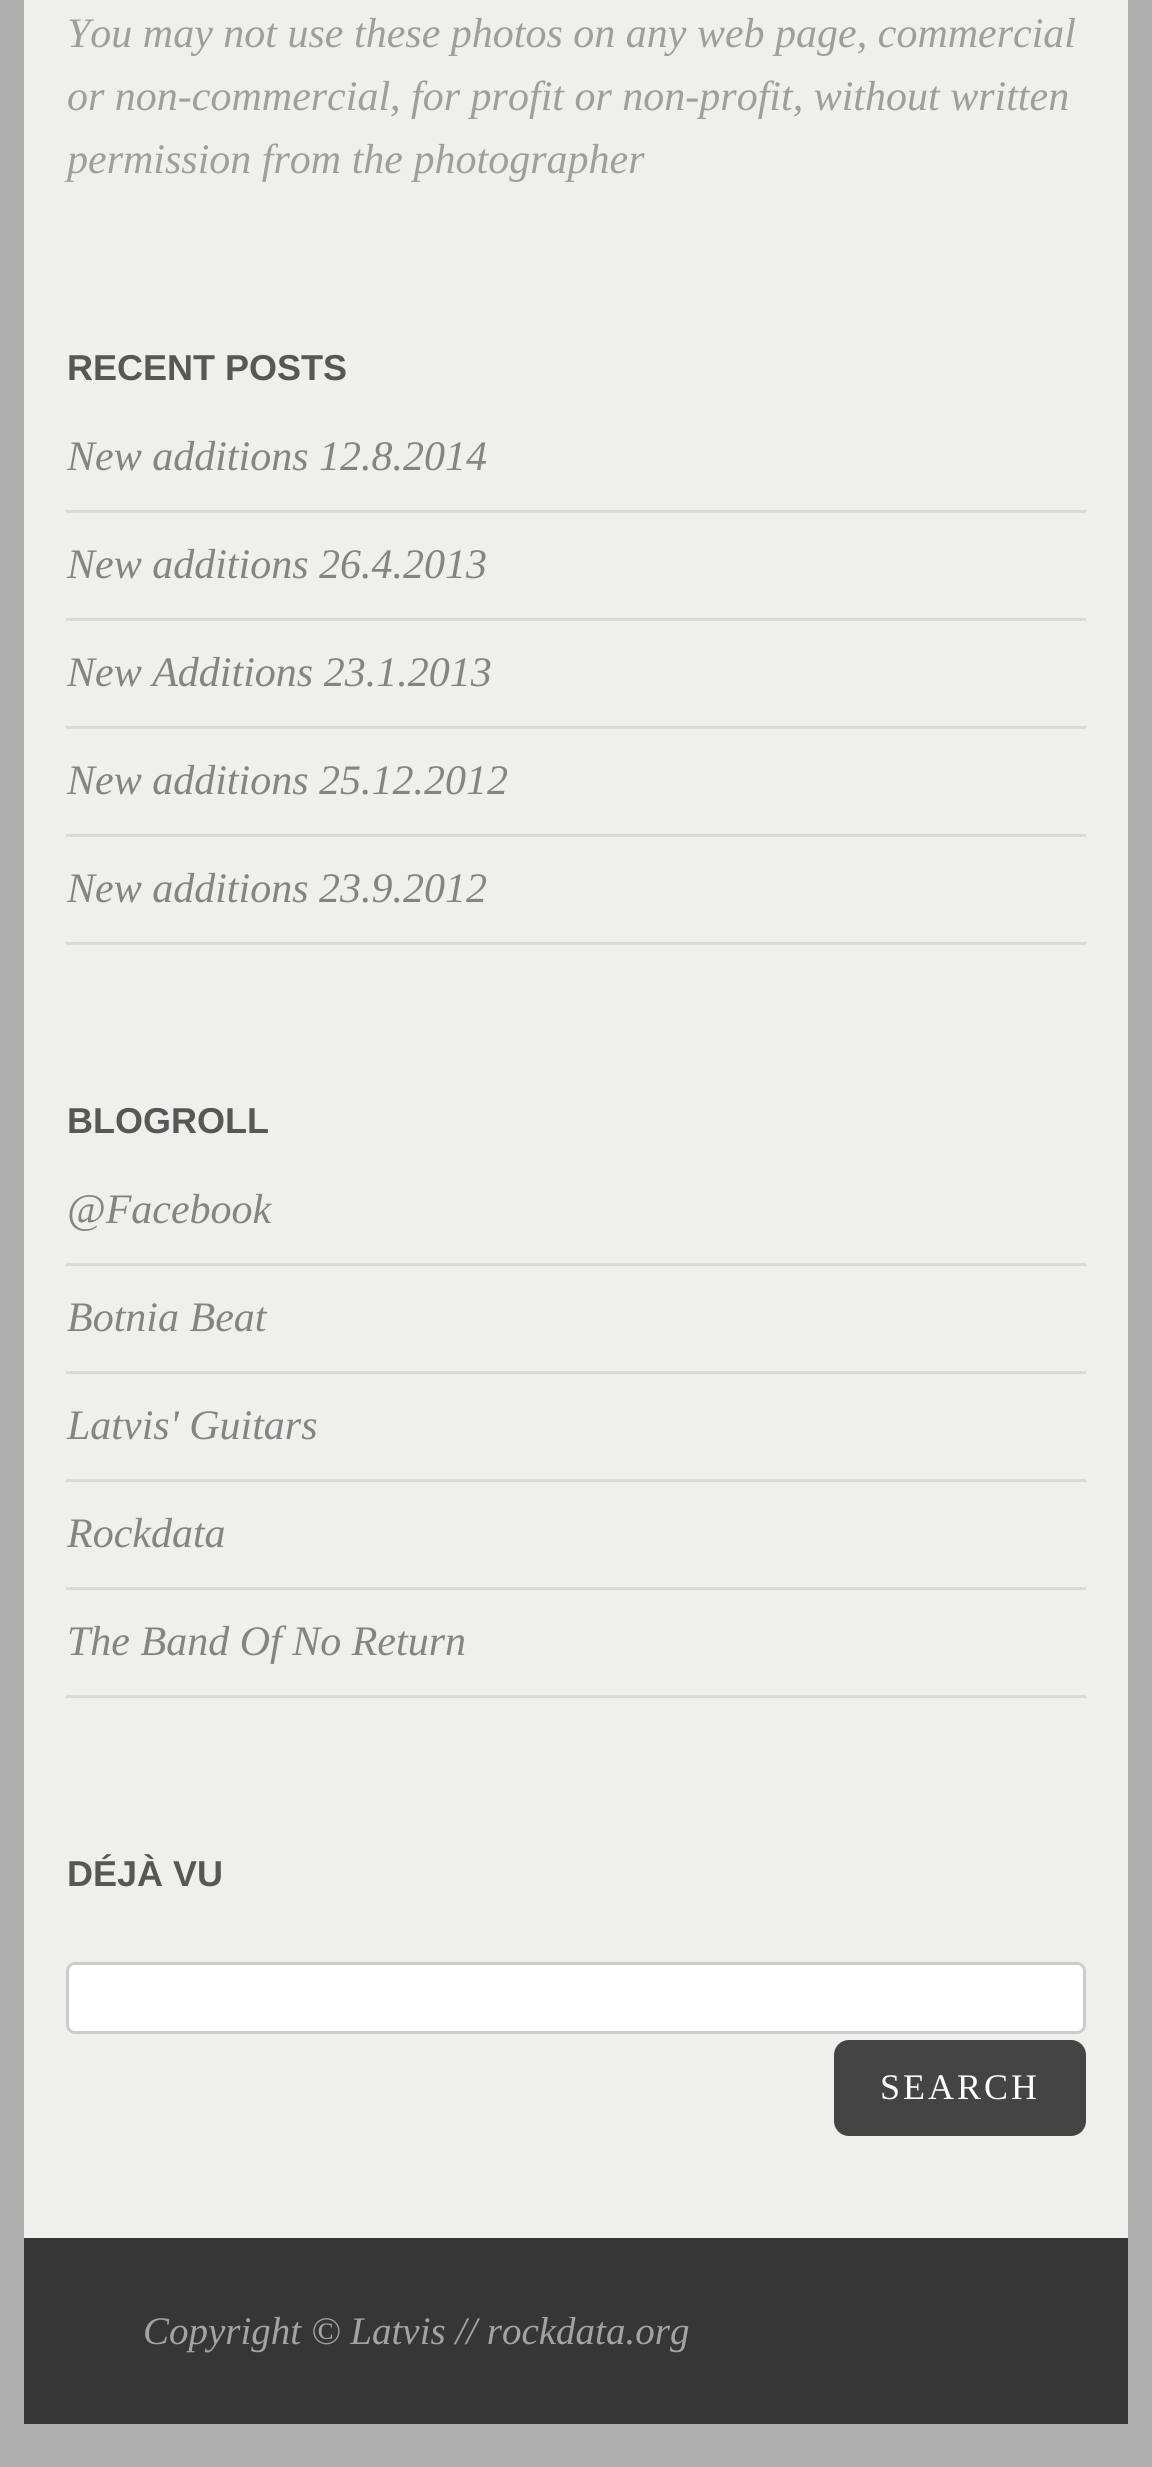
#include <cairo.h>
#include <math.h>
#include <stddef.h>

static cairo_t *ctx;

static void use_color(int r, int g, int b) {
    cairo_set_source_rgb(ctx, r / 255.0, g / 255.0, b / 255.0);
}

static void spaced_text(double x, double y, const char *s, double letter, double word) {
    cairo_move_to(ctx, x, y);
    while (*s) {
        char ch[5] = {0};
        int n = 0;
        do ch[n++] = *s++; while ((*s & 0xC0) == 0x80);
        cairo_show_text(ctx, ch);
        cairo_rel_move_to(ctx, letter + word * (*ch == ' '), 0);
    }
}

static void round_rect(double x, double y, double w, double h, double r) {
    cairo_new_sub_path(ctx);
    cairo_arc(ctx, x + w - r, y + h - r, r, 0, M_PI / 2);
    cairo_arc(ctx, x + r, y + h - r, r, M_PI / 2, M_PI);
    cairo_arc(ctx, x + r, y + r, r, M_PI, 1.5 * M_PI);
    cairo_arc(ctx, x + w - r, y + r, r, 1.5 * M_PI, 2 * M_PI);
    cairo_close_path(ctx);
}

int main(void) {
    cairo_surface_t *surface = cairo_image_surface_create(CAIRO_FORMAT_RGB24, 1152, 2467);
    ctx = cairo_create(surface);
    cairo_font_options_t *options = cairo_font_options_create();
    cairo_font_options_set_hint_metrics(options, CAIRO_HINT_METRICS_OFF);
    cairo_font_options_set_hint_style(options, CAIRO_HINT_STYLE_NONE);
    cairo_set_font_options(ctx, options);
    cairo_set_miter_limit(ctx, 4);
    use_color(176, 176, 176);
    cairo_paint(ctx);
    use_color(239, 239, 236);
    cairo_rectangle(ctx, 24, 0, 1104, 2238);
    cairo_fill(ctx);
    cairo_select_font_face(ctx, "Liberation Serif", CAIRO_FONT_SLANT_ITALIC, CAIRO_FONT_WEIGHT_NORMAL);
    cairo_set_font_size(ctx, 42);
    use_color(158, 158, 157);
    cairo_move_to(ctx, 67, 47);
    cairo_show_text(ctx, "You may not use these photos on any web page, commercial");
    cairo_move_to(ctx, 67, 110);
    cairo_show_text(ctx, "or non-commercial, for profit or non-profit, without written");
    cairo_move_to(ctx, 67, 173);
    cairo_show_text(ctx, "permission from the photographer");
    cairo_select_font_face(ctx, "Liberation Sans", CAIRO_FONT_SLANT_NORMAL, CAIRO_FONT_WEIGHT_BOLD);
    cairo_set_font_size(ctx, 36);
    use_color(87, 87, 87);
    cairo_move_to(ctx, 67, 380);
    cairo_show_text(ctx, "RECENT POSTS");
    use_color(218, 218, 218);
    cairo_rectangle(ctx, 66, 510, 1020, 3);
    cairo_fill(ctx);
    cairo_select_font_face(ctx, "Liberation Serif", CAIRO_FONT_SLANT_ITALIC, CAIRO_FONT_WEIGHT_NORMAL);
    cairo_set_font_size(ctx, 42);
    use_color(132, 132, 132);
    cairo_move_to(ctx, 67, 470);
    cairo_show_text(ctx, "New additions 12.8.2014");
    use_color(218, 218, 218);
    cairo_rectangle(ctx, 66, 618, 1020, 3);
    cairo_fill(ctx);
    use_color(132, 132, 132);
    cairo_move_to(ctx, 67, 578);
    cairo_show_text(ctx, "New additions 26.4.2013");
    use_color(218, 218, 218);
    cairo_rectangle(ctx, 66, 726, 1020, 3);
    cairo_fill(ctx);
    use_color(132, 132, 132);
    cairo_move_to(ctx, 67, 686);
    cairo_show_text(ctx, "New Additions 23.1.2013");
    use_color(218, 218, 218);
    cairo_rectangle(ctx, 66, 834, 1020, 3);
    cairo_fill(ctx);
    use_color(132, 132, 132);
    cairo_move_to(ctx, 67, 794);
    cairo_show_text(ctx, "New additions 25.12.2012");
    use_color(218, 218, 218);
    cairo_rectangle(ctx, 66, 942, 1020, 3);
    cairo_fill(ctx);
    use_color(132, 132, 132);
    cairo_move_to(ctx, 67, 902);
    cairo_show_text(ctx, "New additions 23.9.2012");
    cairo_select_font_face(ctx, "Liberation Sans", CAIRO_FONT_SLANT_NORMAL, CAIRO_FONT_WEIGHT_BOLD);
    cairo_set_font_size(ctx, 36);
    use_color(87, 87, 87);
    cairo_move_to(ctx, 67, 1133);
    cairo_show_text(ctx, "BLOGROLL");
    use_color(218, 218, 218);
    cairo_rectangle(ctx, 66, 1263, 1020, 3);
    cairo_fill(ctx);
    cairo_select_font_face(ctx, "Liberation Serif", CAIRO_FONT_SLANT_ITALIC, CAIRO_FONT_WEIGHT_NORMAL);
    cairo_set_font_size(ctx, 42);
    use_color(132, 132, 132);
    cairo_move_to(ctx, 67, 1223);
    cairo_show_text(ctx, "@Facebook");
    use_color(218, 218, 218);
    cairo_rectangle(ctx, 66, 1371, 1020, 3);
    cairo_fill(ctx);
    use_color(132, 132, 132);
    cairo_move_to(ctx, 67, 1331);
    cairo_show_text(ctx, "Botnia Beat");
    use_color(218, 218, 218);
    cairo_rectangle(ctx, 66, 1479, 1020, 3);
    cairo_fill(ctx);
    use_color(132, 132, 132);
    cairo_move_to(ctx, 67, 1439);
    cairo_show_text(ctx, "Latvis' Guitars");
    use_color(218, 218, 218);
    cairo_rectangle(ctx, 66, 1587, 1020, 3);
    cairo_fill(ctx);
    use_color(132, 132, 132);
    cairo_move_to(ctx, 67, 1547);
    cairo_show_text(ctx, "Rockdata");
    use_color(218, 218, 218);
    cairo_rectangle(ctx, 66, 1695, 1020, 3);
    cairo_fill(ctx);
    use_color(132, 132, 132);
    cairo_move_to(ctx, 67, 1655);
    cairo_show_text(ctx, "The Band Of No Return");
    cairo_select_font_face(ctx, "Liberation Sans", CAIRO_FONT_SLANT_NORMAL, CAIRO_FONT_WEIGHT_BOLD);
    cairo_set_font_size(ctx, 36);
    use_color(87, 87, 87);
    cairo_move_to(ctx, 67, 1886);
    cairo_show_text(ctx, "DÉJÀ VU");
    use_color(255, 255, 255);
    round_rect(67.5, 1963.5, 1017, 69, 7.5);
    cairo_fill_preserve(ctx);
    use_color(204, 204, 204);
    cairo_set_line_width(ctx, 3);
    cairo_stroke(ctx);
    use_color(68, 68, 68);
    round_rect(834, 2040, 252, 96, 15);
    cairo_fill(ctx);
    cairo_select_font_face(ctx, "Liberation Serif", CAIRO_FONT_SLANT_NORMAL, CAIRO_FONT_WEIGHT_NORMAL);
    use_color(255, 255, 255);
    spaced_text(880, 2099, "SEARCH", 3, 0);
    use_color(54, 54, 54);
    cairo_rectangle(ctx, 24, 2238, 1104, 186);
    cairo_fill(ctx);
    cairo_select_font_face(ctx, "Liberation Serif", CAIRO_FONT_SLANT_ITALIC, CAIRO_FONT_WEIGHT_NORMAL);
    cairo_set_font_size(ctx, 39);
    use_color(163, 163, 163);
    cairo_move_to(ctx, 143, 2344);
    cairo_show_text(ctx, "Copyright © Latvis // rockdata.org");
    cairo_surface_write_to_png(surface, "result.png");
    cairo_font_options_destroy(options);
    cairo_destroy(ctx);
    cairo_surface_destroy(surface);
    return 0;
}
